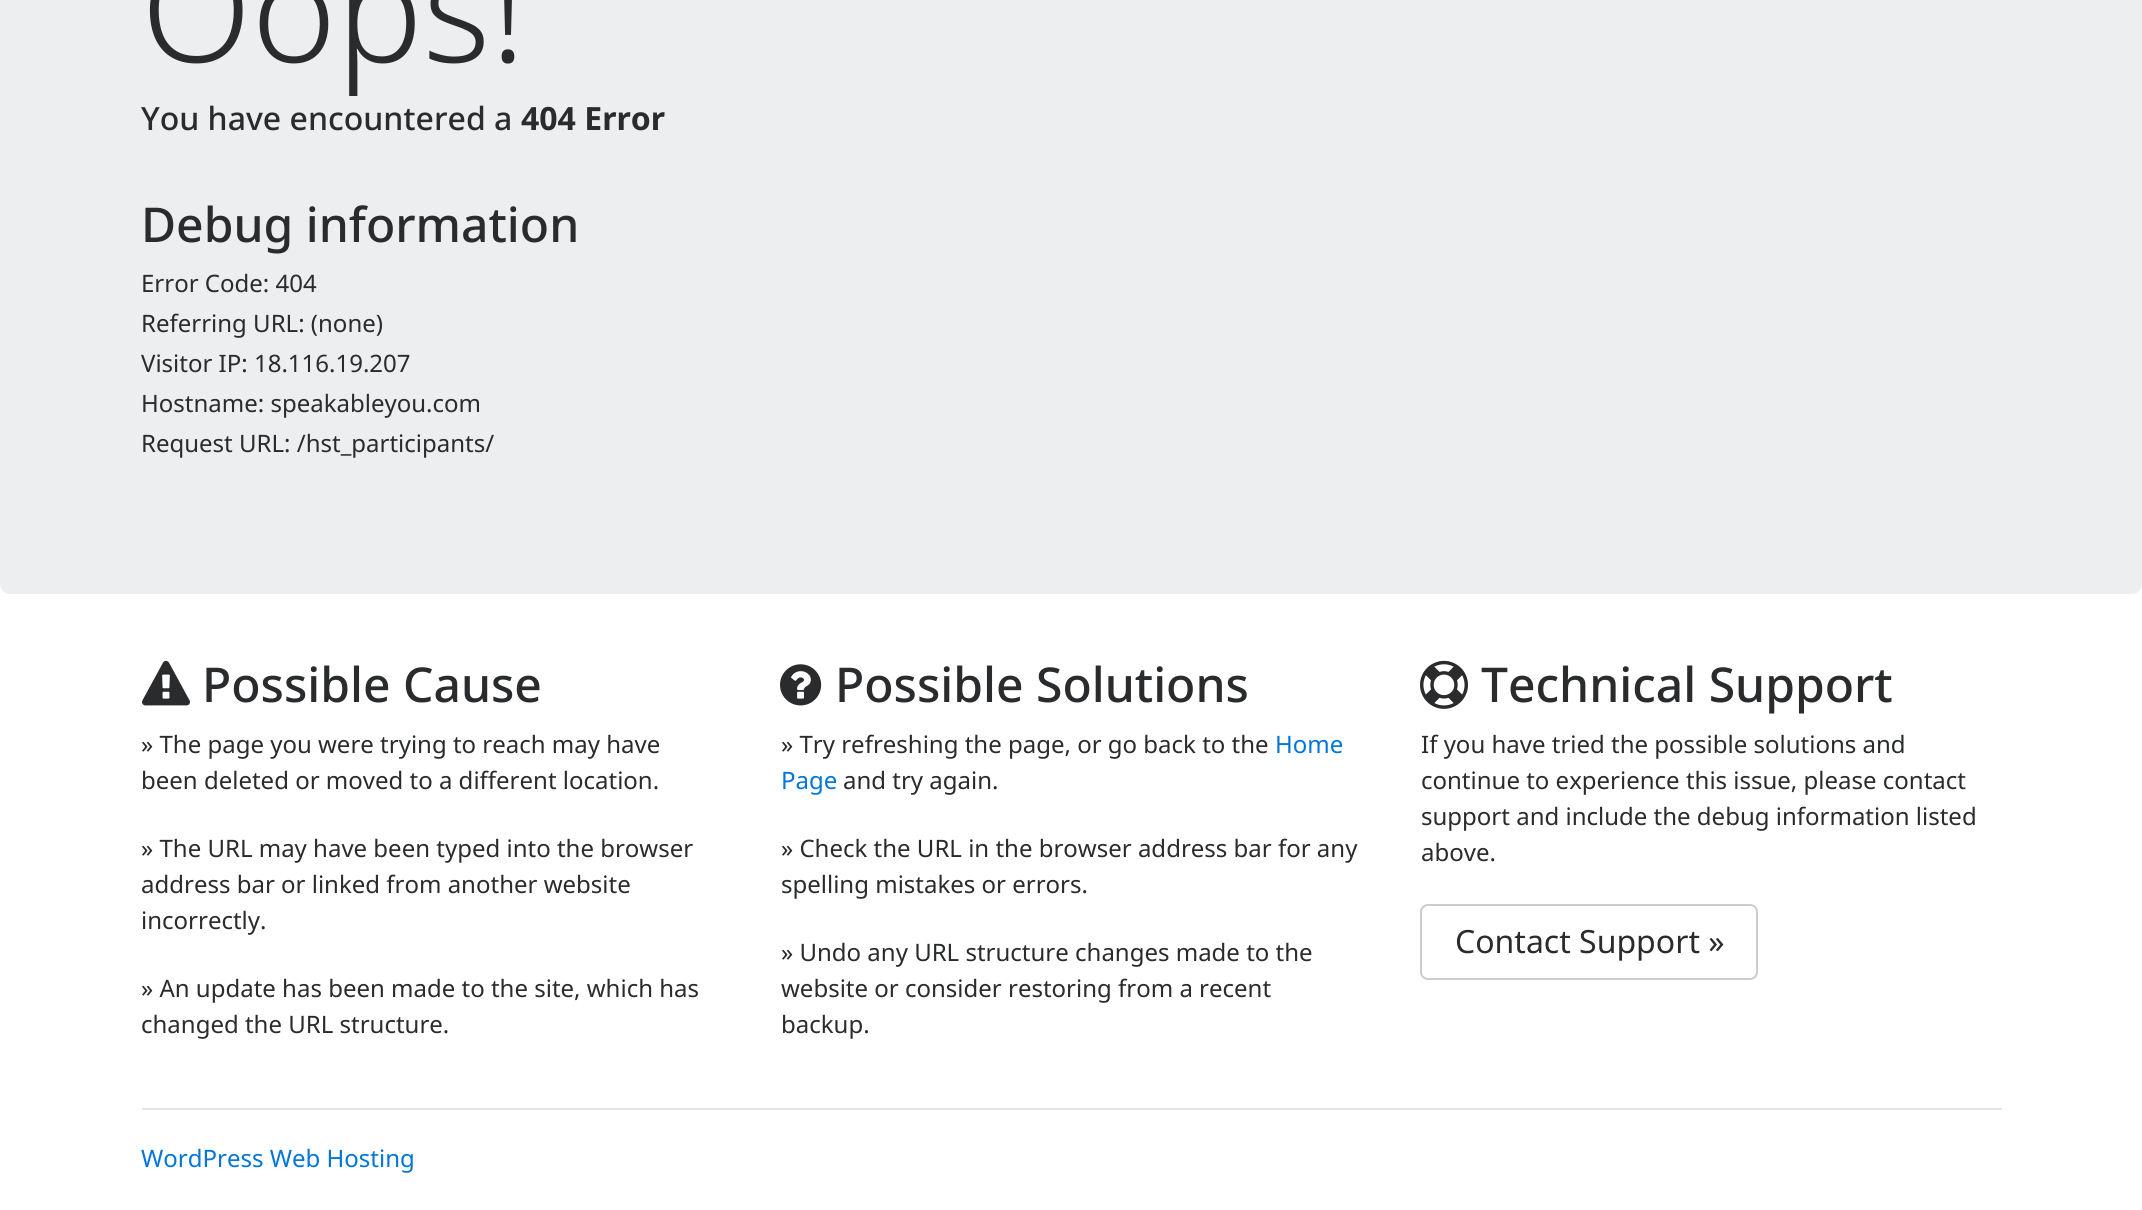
#include <cairo.h>
#include <math.h>
#include <stddef.h>

static cairo_t *ctx;

static void use_color(int r, int g, int b) {
    cairo_set_source_rgb(ctx, r / 255.0, g / 255.0, b / 255.0);
}

static void round_rect(double x, double y, double w, double h, double r) {
    cairo_new_sub_path(ctx);
    cairo_arc(ctx, x + w - r, y + h - r, r, 0, M_PI / 2);
    cairo_arc(ctx, x + r, y + h - r, r, M_PI / 2, M_PI);
    cairo_arc(ctx, x + r, y + r, r, M_PI, 1.5 * M_PI);
    cairo_arc(ctx, x + w - r, y + r, r, 1.5 * M_PI, 2 * M_PI);
    cairo_close_path(ctx);
}

static void picture(const char *path, double x, double y, double w, double h) {
    cairo_surface_t *image = cairo_image_surface_create_from_png(path);
    cairo_save(ctx);
    cairo_set_source_surface(ctx, image, x, y);
    cairo_rectangle(ctx, x, y, w, h);
    cairo_fill(ctx);
    cairo_restore(ctx);
    cairo_surface_destroy(image);
}

int main(void) {
    cairo_surface_t *surface = cairo_image_surface_create(CAIRO_FORMAT_RGB24, 2142, 1210);
    ctx = cairo_create(surface);
    cairo_font_options_t *options = cairo_font_options_create();
    cairo_font_options_set_hint_metrics(options, CAIRO_HINT_METRICS_OFF);
    cairo_font_options_set_hint_style(options, CAIRO_HINT_STYLE_NONE);
    cairo_set_font_options(ctx, options);
    cairo_set_miter_limit(ctx, 4);
    use_color(255, 255, 255);
    cairo_paint(ctx);
    use_color(236, 238, 239);
    round_rect(0, -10, 2142, 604, 10);
    cairo_fill(ctx);
    cairo_select_font_face(ctx, "Noto Sans Light", CAIRO_FONT_SLANT_NORMAL, CAIRO_FONT_WEIGHT_NORMAL);
    cairo_set_font_size(ctx, 144);
    use_color(41, 43, 44);
    cairo_move_to(ctx, 141, 62);
    cairo_show_text(ctx, "Oops!");
    cairo_select_font_face(ctx, "Noto Sans Medium", CAIRO_FONT_SLANT_NORMAL, CAIRO_FONT_WEIGHT_NORMAL);
    cairo_set_font_size(ctx, 32);
    cairo_move_to(ctx, 141, 130);
    cairo_show_text(ctx, "You have encountered a");
    cairo_select_font_face(ctx, "Noto Sans", CAIRO_FONT_SLANT_NORMAL, CAIRO_FONT_WEIGHT_BOLD);
    cairo_move_to(ctx, 521, 130);
    cairo_show_text(ctx, "404 Error");
    cairo_select_font_face(ctx, "Noto Sans Medium", CAIRO_FONT_SLANT_NORMAL, CAIRO_FONT_WEIGHT_NORMAL);
    cairo_set_font_size(ctx, 48);
    cairo_move_to(ctx, 141, 242);
    cairo_show_text(ctx, "Debug information");
    cairo_select_font_face(ctx, "Noto Sans", CAIRO_FONT_SLANT_NORMAL, CAIRO_FONT_WEIGHT_NORMAL);
    cairo_set_font_size(ctx, 24);
    cairo_move_to(ctx, 141, 292);
    cairo_show_text(ctx, "Error Code: 404");
    cairo_move_to(ctx, 141, 332);
    cairo_show_text(ctx, "Referring URL: (none)");
    cairo_move_to(ctx, 141, 372);
    cairo_show_text(ctx, "Visitor IP: 18.116.19.207");
    cairo_move_to(ctx, 141, 412);
    cairo_show_text(ctx, "Hostname: speakableyou.com");
    cairo_move_to(ctx, 141, 452);
    cairo_show_text(ctx, "Request URL: /hst_participants/");
    picture("img1.png", 142, 660, 48, 46);
    cairo_select_font_face(ctx, "Noto Sans Medium", CAIRO_FONT_SLANT_NORMAL, CAIRO_FONT_WEIGHT_NORMAL);
    cairo_set_font_size(ctx, 48);
    cairo_move_to(ctx, 202, 702);
    cairo_show_text(ctx, "Possible Cause");
    cairo_select_font_face(ctx, "Noto Sans", CAIRO_FONT_SLANT_NORMAL, CAIRO_FONT_WEIGHT_NORMAL);
    cairo_set_font_size(ctx, 24);
    cairo_move_to(ctx, 141, 753);
    cairo_show_text(ctx, "» The page you were trying to reach may have");
    cairo_move_to(ctx, 141, 789);
    cairo_show_text(ctx, "been deleted or moved to a different location.");
    cairo_move_to(ctx, 141, 857);
    cairo_show_text(ctx, "» The URL may have been typed into the browser");
    cairo_move_to(ctx, 141, 893);
    cairo_show_text(ctx, "address bar or linked from another website");
    cairo_move_to(ctx, 141, 929);
    cairo_show_text(ctx, "incorrectly.");
    cairo_move_to(ctx, 141, 997);
    cairo_show_text(ctx, "» An update has been made to the site, which has");
    cairo_move_to(ctx, 141, 1033);
    cairo_show_text(ctx, "changed the URL structure.");
    picture("img2.png", 780, 664, 42, 42);
    cairo_select_font_face(ctx, "Noto Sans Medium", CAIRO_FONT_SLANT_NORMAL, CAIRO_FONT_WEIGHT_NORMAL);
    cairo_set_font_size(ctx, 48);
    cairo_move_to(ctx, 835, 702);
    cairo_show_text(ctx, "Possible Solutions");
    cairo_select_font_face(ctx, "Noto Sans", CAIRO_FONT_SLANT_NORMAL, CAIRO_FONT_WEIGHT_NORMAL);
    cairo_set_font_size(ctx, 24);
    cairo_move_to(ctx, 781, 753);
    cairo_show_text(ctx, "» Try refreshing the page, or go back to the");
    use_color(2, 117, 216);
    cairo_move_to(ctx, 1275, 753);
    cairo_show_text(ctx, "Home");
    cairo_move_to(ctx, 781, 789);
    cairo_show_text(ctx, "Page");
    use_color(41, 43, 44);
    cairo_move_to(ctx, 843, 789);
    cairo_show_text(ctx, "and try again.");
    cairo_move_to(ctx, 781, 857);
    cairo_show_text(ctx, "» Check the URL in the browser address bar for any");
    cairo_move_to(ctx, 781, 893);
    cairo_show_text(ctx, "spelling mistakes or errors.");
    cairo_move_to(ctx, 781, 961);
    cairo_show_text(ctx, "» Undo any URL structure changes made to the");
    cairo_move_to(ctx, 781, 997);
    cairo_show_text(ctx, "website or consider restoring from a recent");
    cairo_move_to(ctx, 781, 1033);
    cairo_show_text(ctx, "backup.");
    picture("img3.png", 1420, 660, 48, 49);
    cairo_select_font_face(ctx, "Noto Sans Medium", CAIRO_FONT_SLANT_NORMAL, CAIRO_FONT_WEIGHT_NORMAL);
    cairo_set_font_size(ctx, 48);
    cairo_move_to(ctx, 1481, 702);
    cairo_show_text(ctx, "Technical Support");
    cairo_select_font_face(ctx, "Noto Sans", CAIRO_FONT_SLANT_NORMAL, CAIRO_FONT_WEIGHT_NORMAL);
    cairo_set_font_size(ctx, 24);
    cairo_move_to(ctx, 1421, 753);
    cairo_show_text(ctx, "If you have tried the possible solutions and");
    cairo_move_to(ctx, 1421, 789);
    cairo_show_text(ctx, "continue to experience this issue, please contact");
    cairo_move_to(ctx, 1421, 825);
    cairo_show_text(ctx, "support and include the debug information listed");
    cairo_move_to(ctx, 1421, 861);
    cairo_show_text(ctx, "above.");
    round_rect(1421, 905, 336, 74, 7);
    use_color(204, 204, 204);
    cairo_stroke(ctx);
    cairo_set_font_size(ctx, 32);
    use_color(41, 43, 44);
    cairo_move_to(ctx, 1455, 953);
    cairo_show_text(ctx, "Contact Support »");
    use_color(230, 230, 230);
    cairo_rectangle(ctx, 142, 1108, 1860, 2);
    cairo_fill(ctx);
    cairo_set_font_size(ctx, 24);
    use_color(2, 117, 216);
    cairo_move_to(ctx, 141, 1167);
    cairo_show_text(ctx, "WordPress Web Hosting");
    cairo_surface_write_to_png(surface, "result.png");
    cairo_font_options_destroy(options);
    cairo_destroy(ctx);
    cairo_surface_destroy(surface);
    return 0;
}
